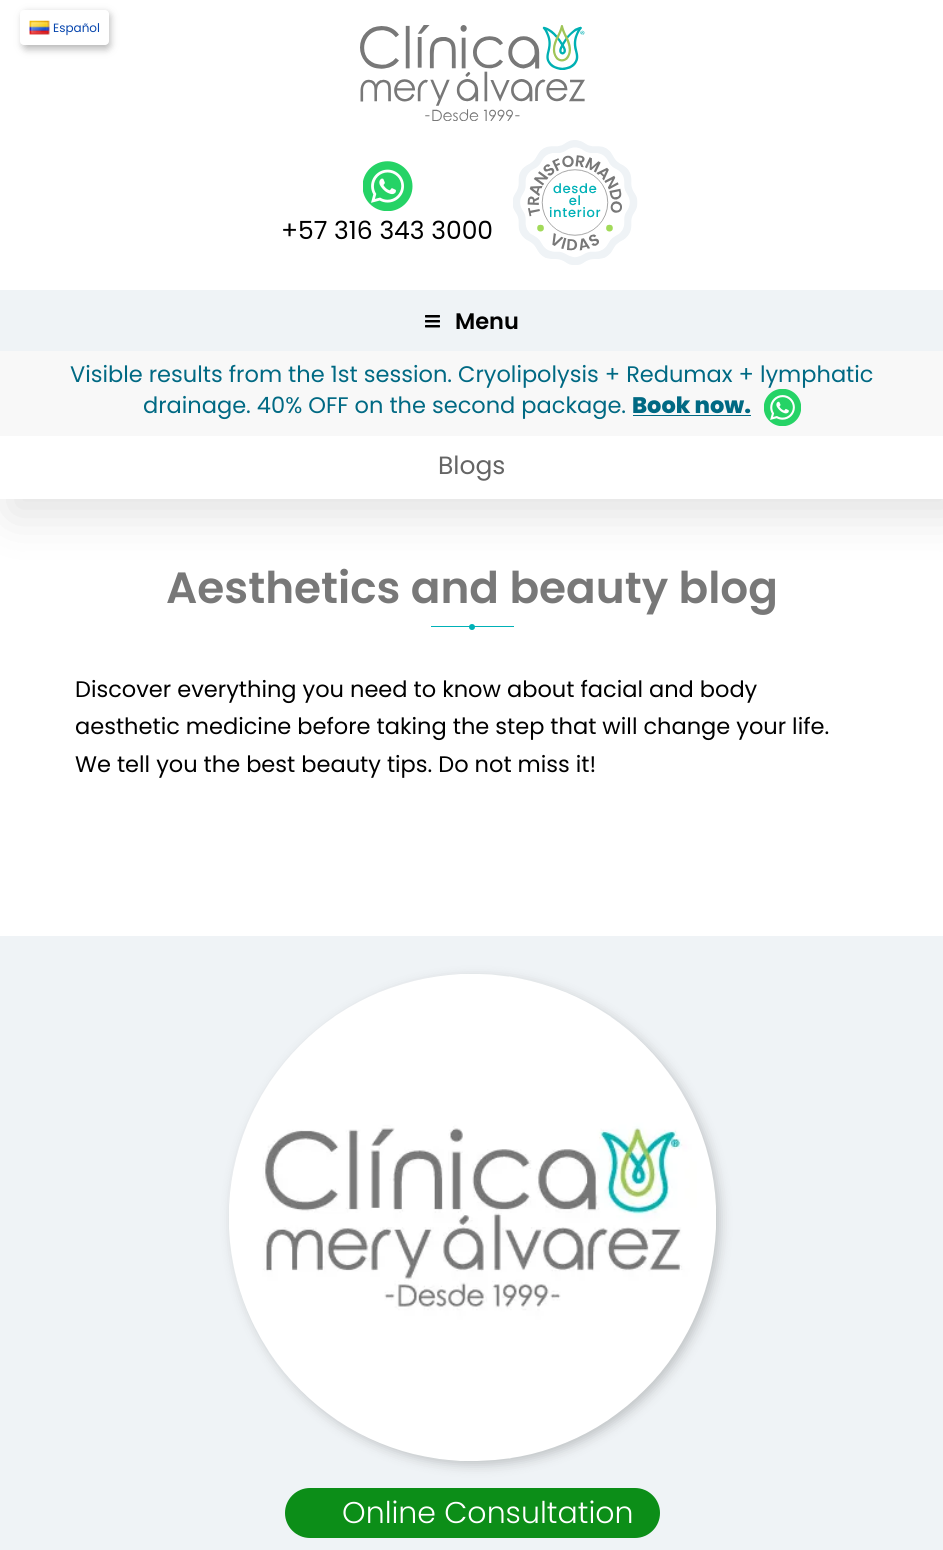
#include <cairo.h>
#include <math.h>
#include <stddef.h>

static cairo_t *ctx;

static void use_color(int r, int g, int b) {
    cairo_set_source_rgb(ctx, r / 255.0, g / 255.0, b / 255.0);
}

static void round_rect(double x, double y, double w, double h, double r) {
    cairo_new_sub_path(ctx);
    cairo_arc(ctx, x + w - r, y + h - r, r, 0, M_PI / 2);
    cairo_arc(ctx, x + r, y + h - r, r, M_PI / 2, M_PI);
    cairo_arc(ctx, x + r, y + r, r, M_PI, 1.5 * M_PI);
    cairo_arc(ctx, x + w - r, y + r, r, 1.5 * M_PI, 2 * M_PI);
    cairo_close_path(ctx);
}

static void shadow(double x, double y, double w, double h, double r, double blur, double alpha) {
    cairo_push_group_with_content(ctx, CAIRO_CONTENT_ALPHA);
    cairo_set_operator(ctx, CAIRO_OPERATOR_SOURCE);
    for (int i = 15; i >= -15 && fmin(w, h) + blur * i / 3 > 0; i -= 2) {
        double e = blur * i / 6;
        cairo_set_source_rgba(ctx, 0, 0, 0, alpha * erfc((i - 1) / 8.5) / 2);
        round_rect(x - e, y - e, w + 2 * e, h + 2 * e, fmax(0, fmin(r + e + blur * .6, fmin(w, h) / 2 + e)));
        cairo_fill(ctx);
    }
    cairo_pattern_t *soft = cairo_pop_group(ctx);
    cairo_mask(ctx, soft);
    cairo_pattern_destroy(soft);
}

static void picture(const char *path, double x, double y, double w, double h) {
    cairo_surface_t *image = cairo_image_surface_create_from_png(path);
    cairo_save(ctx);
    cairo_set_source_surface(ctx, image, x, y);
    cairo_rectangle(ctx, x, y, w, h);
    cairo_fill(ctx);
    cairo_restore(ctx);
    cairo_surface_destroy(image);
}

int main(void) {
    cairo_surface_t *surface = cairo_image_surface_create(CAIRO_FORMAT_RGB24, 943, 1550);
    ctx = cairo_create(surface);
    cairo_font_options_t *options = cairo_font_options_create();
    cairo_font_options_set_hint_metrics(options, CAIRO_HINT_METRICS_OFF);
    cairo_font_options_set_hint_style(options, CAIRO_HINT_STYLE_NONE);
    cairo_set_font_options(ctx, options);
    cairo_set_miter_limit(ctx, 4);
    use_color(255, 255, 255);
    cairo_paint(ctx);
    use_color(82, 82, 82);
    shadow(23, 13, 87, 36, 4, 4, 0.42);
    use_color(255, 255, 255);
    round_rect(20, 10, 89, 35, 4);
    cairo_fill(ctx);
    picture("img1.png", 29, 20, 21, 15);
    cairo_select_font_face(ctx, "Poppins", CAIRO_FONT_SLANT_NORMAL, CAIRO_FONT_WEIGHT_NORMAL);
    cairo_set_font_size(ctx, 12);
    use_color(6, 69, 173);
    cairo_move_to(ctx, 53, 32);
    cairo_show_text(ctx, "Español");
    picture("img2.png", 363, 161, 50, 50);
    cairo_set_font_size(ctx, 25);
    use_color(0, 0, 0);
    cairo_move_to(ctx, 281, 239);
    cairo_show_text(ctx, "+57 316 343 3000");
    picture("img3.png", 513, 140, 125, 125);
    picture("img4.png", 360, 25, 225, 96);
    use_color(239, 243, 246);
    cairo_rectangle(ctx, 0, 290, 943, 61);
    cairo_fill(ctx);
    picture("img5.png", 425, 315, 15, 13);
    cairo_select_font_face(ctx, "Poppins SemiBold", CAIRO_FONT_SLANT_NORMAL, CAIRO_FONT_WEIGHT_NORMAL);
    cairo_set_font_size(ctx, 22.5);
    use_color(0, 0, 0);
    cairo_move_to(ctx, 455, 329);
    cairo_show_text(ctx, "Menu");
    use_color(0, 0, 0);
    shadow(10, 451, 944, 63, 0, 25, 0.12);
    use_color(248, 248, 248);
    cairo_rectangle(ctx, 0, 351, 943, 85);
    cairo_fill(ctx);
    cairo_select_font_face(ctx, "Poppins", CAIRO_FONT_SLANT_NORMAL, CAIRO_FONT_WEIGHT_NORMAL);
    use_color(0, 105, 131);
    cairo_move_to(ctx, 70, 382);
    cairo_show_text(ctx, "Visible results from the 1st session. Cryolipolysis + Redumax + lymphatic");
    cairo_move_to(ctx, 143, 413);
    cairo_show_text(ctx, "drainage. 40% OFF on the second package.");
    cairo_select_font_face(ctx, "Poppins ExtraBold", CAIRO_FONT_SLANT_NORMAL, CAIRO_FONT_WEIGHT_NORMAL);
    cairo_move_to(ctx, 632, 413);
    cairo_show_text(ctx, "Book now.");
    cairo_rectangle(ctx, 633, 415, 118, 1);
    cairo_fill(ctx);
    picture("img6.png", 764, 389, 37, 37);
    use_color(255, 255, 255);
    cairo_rectangle(ctx, 0, 436, 943, 63);
    cairo_fill(ctx);
    cairo_select_font_face(ctx, "Poppins", CAIRO_FONT_SLANT_NORMAL, CAIRO_FONT_WEIGHT_NORMAL);
    cairo_set_font_size(ctx, 25);
    use_color(101, 101, 101);
    cairo_move_to(ctx, 438, 474);
    cairo_show_text(ctx, "Blogs");
    cairo_select_font_face(ctx, "Poppins SemiBold", CAIRO_FONT_SLANT_NORMAL, CAIRO_FONT_WEIGHT_NORMAL);
    cairo_set_font_size(ctx, 43.75);
    use_color(120, 120, 120);
    cairo_move_to(ctx, 166, 603);
    cairo_show_text(ctx, "Aesthetics and beauty blog");
    use_color(0, 177, 183);
    cairo_rectangle(ctx, 431, 626, 83, 1);
    cairo_fill(ctx);
    cairo_arc(ctx, 472, 627, 3, 0, 2 * M_PI);
    cairo_fill(ctx);
    cairo_select_font_face(ctx, "Poppins", CAIRO_FONT_SLANT_NORMAL, CAIRO_FONT_WEIGHT_NORMAL);
    cairo_set_font_size(ctx, 22.5);
    use_color(0, 0, 0);
    cairo_move_to(ctx, 75, 697);
    cairo_show_text(ctx, "Discover everything you need to know about facial and body");
    cairo_move_to(ctx, 75, 734);
    cairo_show_text(ctx, "aesthetic medicine before taking the step that will change your life.");
    cairo_move_to(ctx, 75, 772);
    cairo_show_text(ctx, "We tell you the best beauty tips. Do not miss it!");
    use_color(239, 243, 246);
    cairo_rectangle(ctx, 0, 936, 943, 614);
    cairo_fill(ctx);
    use_color(0, 0, 0);
    shadow(233, 978, 487, 487, 243.5, 6, 0.2);
    picture("img7.png", 229, 974, 487, 487);
    use_color(12, 142, 24);
    round_rect(285, 1488, 375, 50, 25);
    cairo_fill(ctx);
    cairo_select_font_face(ctx, "Poppins Light", CAIRO_FONT_SLANT_NORMAL, CAIRO_FONT_WEIGHT_NORMAL);
    cairo_set_font_size(ctx, 30);
    use_color(255, 255, 255);
    cairo_move_to(ctx, 342, 1523);
    cairo_show_text(ctx, "Online Consultation");
    cairo_surface_write_to_png(surface, "result.png");
    cairo_font_options_destroy(options);
    cairo_destroy(ctx);
    cairo_surface_destroy(surface);
    return 0;
}
